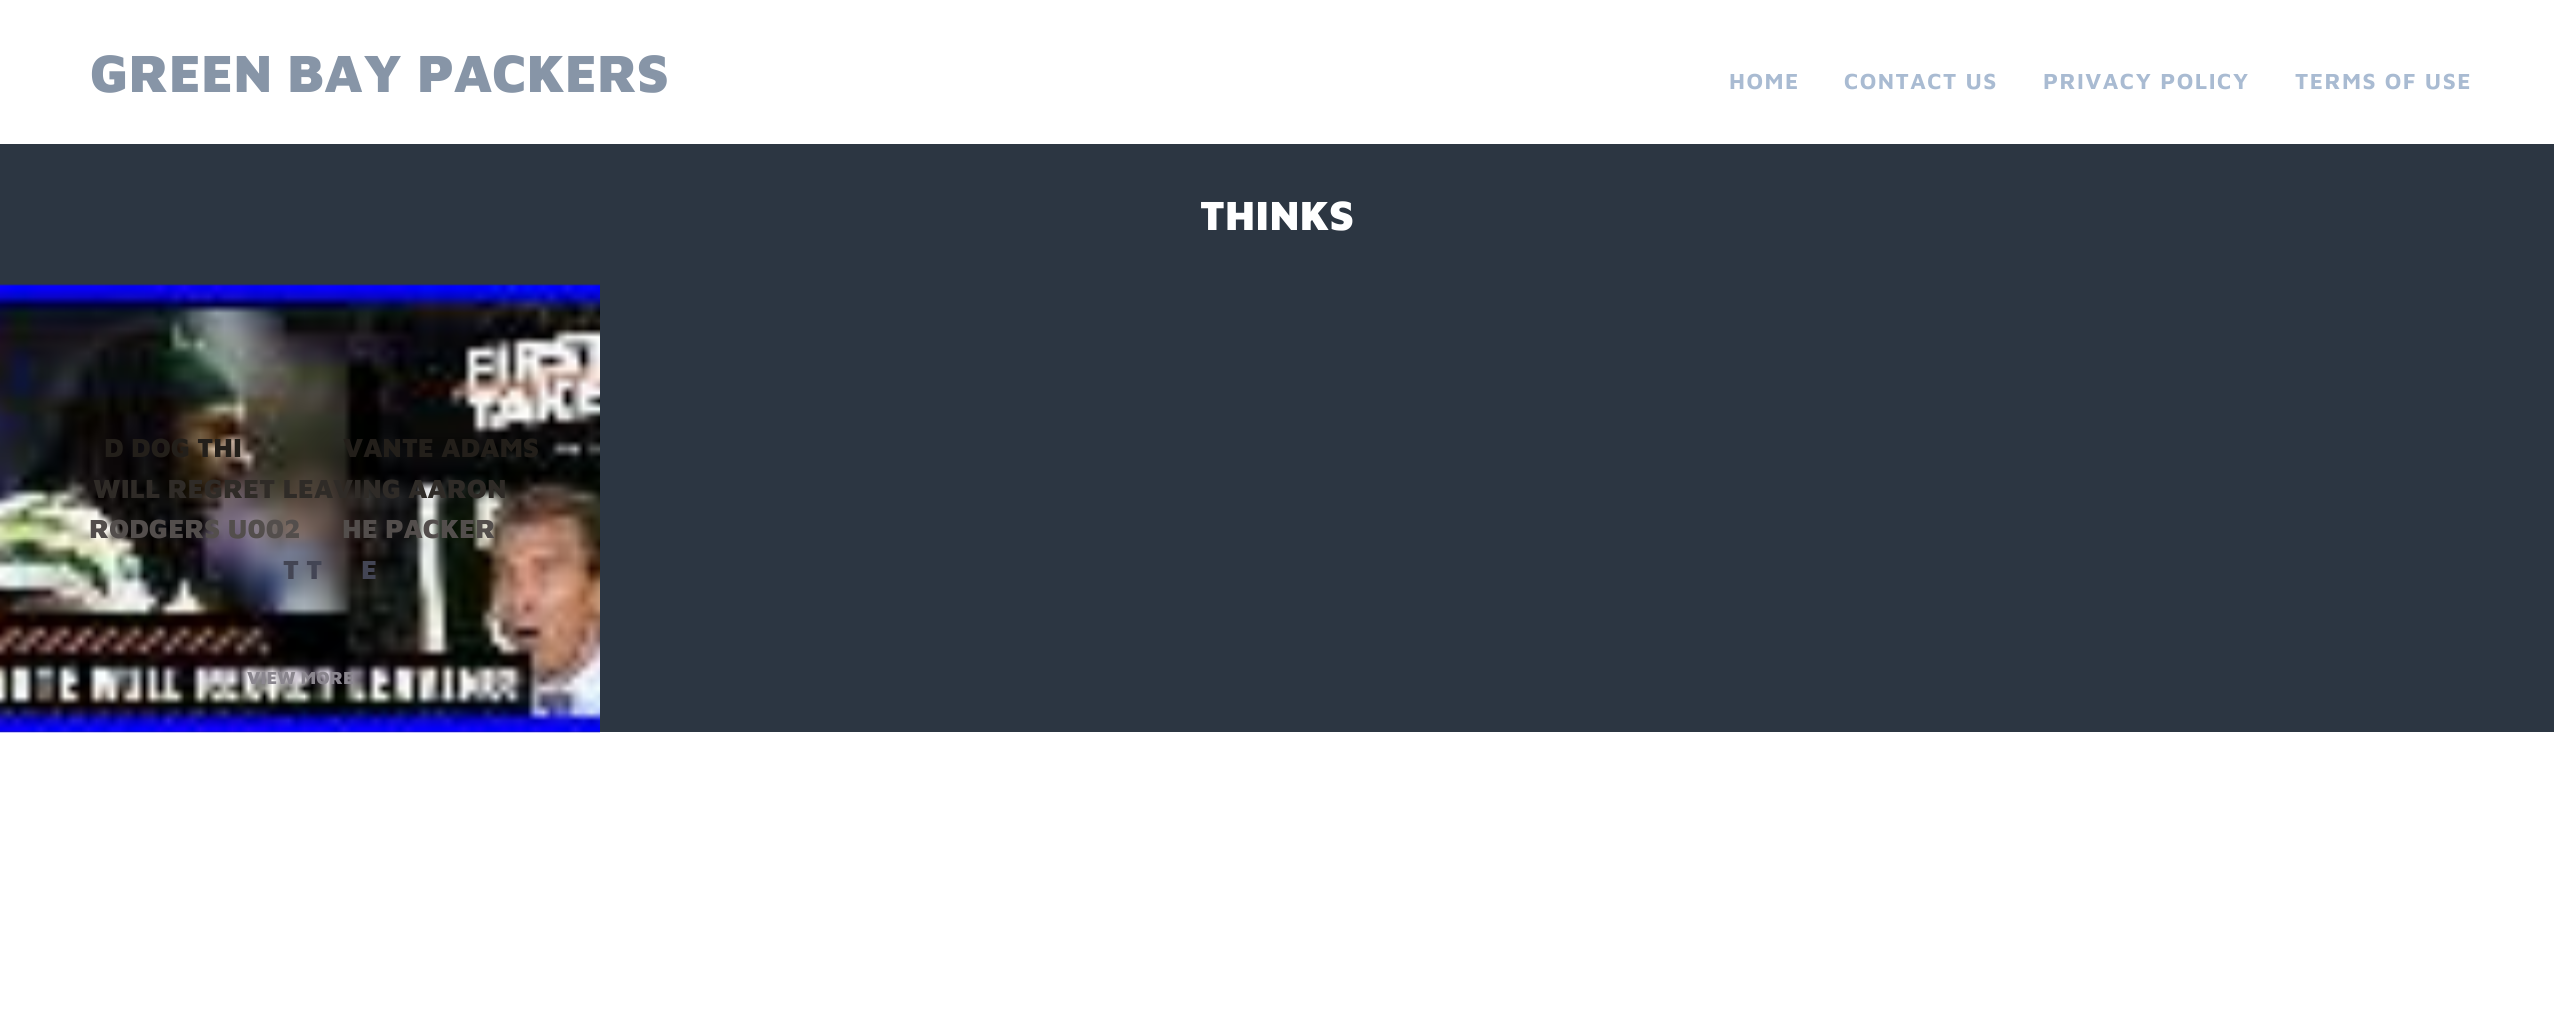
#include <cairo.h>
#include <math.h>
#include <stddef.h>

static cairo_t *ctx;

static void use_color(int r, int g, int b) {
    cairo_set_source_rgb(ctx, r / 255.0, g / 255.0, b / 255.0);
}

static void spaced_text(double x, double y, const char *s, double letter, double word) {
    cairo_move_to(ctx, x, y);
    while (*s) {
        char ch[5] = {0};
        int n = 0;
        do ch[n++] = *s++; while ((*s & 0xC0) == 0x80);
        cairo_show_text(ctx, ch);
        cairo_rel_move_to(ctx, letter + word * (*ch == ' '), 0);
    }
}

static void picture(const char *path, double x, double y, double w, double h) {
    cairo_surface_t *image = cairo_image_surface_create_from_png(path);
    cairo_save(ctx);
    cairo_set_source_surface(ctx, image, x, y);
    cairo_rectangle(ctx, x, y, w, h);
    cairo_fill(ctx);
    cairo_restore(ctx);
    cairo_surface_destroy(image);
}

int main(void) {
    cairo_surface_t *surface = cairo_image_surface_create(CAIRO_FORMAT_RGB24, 2554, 1019);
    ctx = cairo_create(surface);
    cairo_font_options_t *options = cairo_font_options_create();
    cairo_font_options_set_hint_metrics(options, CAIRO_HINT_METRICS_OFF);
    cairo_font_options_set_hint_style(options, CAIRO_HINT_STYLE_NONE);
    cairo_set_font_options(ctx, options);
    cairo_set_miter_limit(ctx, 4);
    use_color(255, 255, 255);
    cairo_paint(ctx);
    cairo_select_font_face(ctx, "Maven Pro Black", CAIRO_FONT_SLANT_NORMAL, CAIRO_FONT_WEIGHT_NORMAL);
    cairo_set_font_size(ctx, 54);
    use_color(135, 149, 167);
    cairo_move_to(ctx, 90, 92);
    cairo_show_text(ctx, "GREEN BAY PACKERS");
    cairo_select_font_face(ctx, "Maven Pro", CAIRO_FONT_SLANT_NORMAL, CAIRO_FONT_WEIGHT_BOLD);
    cairo_set_font_size(ctx, 22.5);
    use_color(169, 187, 210);
    spaced_text(1729, 89, "HOME", 1.5, 0);
    spaced_text(1844, 89, "CONTACT US", 1.5, 0);
    spaced_text(2043, 89, "PRIVACY POLICY", 1.5, 0);
    spaced_text(2295, 89, "TERMS OF USE", 1.5, 0);
    use_color(44, 54, 66);
    cairo_rectangle(ctx, 0, 144, 2554, 588);
    cairo_fill(ctx);
    cairo_select_font_face(ctx, "Maven Pro Black", CAIRO_FONT_SLANT_NORMAL, CAIRO_FONT_WEIGHT_NORMAL);
    cairo_set_font_size(ctx, 42);
    use_color(255, 255, 255);
    cairo_move_to(ctx, 1200, 230);
    cairo_show_text(ctx, "THINKS");
    picture("img1.png", 0, 284, 600, 449);
    cairo_set_font_size(ctx, 27);
    use_color(35, 31, 26);
    cairo_move_to(ctx, 104, 457);
    cairo_show_text(ctx, "D DOG THI");
    cairo_move_to(ctx, 343, 457);
    cairo_show_text(ctx, "VANTE ADAMS");
    use_color(47, 43, 39);
    cairo_move_to(ctx, 93, 498);
    cairo_show_text(ctx, "WILL REGRET LEAVING AARON");
    use_color(83, 78, 76);
    cairo_move_to(ctx, 89, 538);
    cairo_show_text(ctx, "RODGERS U002");
    cairo_move_to(ctx, 342, 538);
    cairo_show_text(ctx, "HE PACKER");
    use_color(67, 69, 84);
    cairo_move_to(ctx, 283, 579);
    cairo_show_text(ctx, "T T");
    cairo_move_to(ctx, 361, 579);
    cairo_show_text(ctx, "E");
    cairo_set_font_size(ctx, 18);
    use_color(138, 134, 142);
    cairo_move_to(ctx, 247, 684);
    cairo_show_text(ctx, "VIEW MORE");
    cairo_surface_write_to_png(surface, "result.png");
    cairo_font_options_destroy(options);
    cairo_destroy(ctx);
    cairo_surface_destroy(surface);
    return 0;
}
